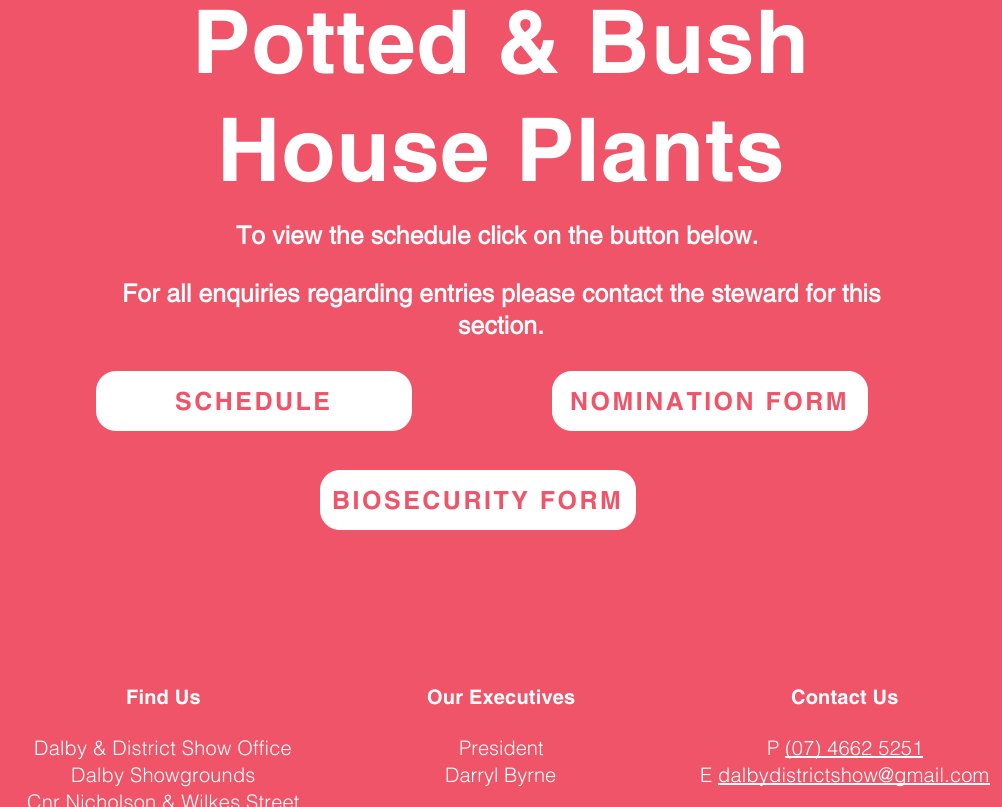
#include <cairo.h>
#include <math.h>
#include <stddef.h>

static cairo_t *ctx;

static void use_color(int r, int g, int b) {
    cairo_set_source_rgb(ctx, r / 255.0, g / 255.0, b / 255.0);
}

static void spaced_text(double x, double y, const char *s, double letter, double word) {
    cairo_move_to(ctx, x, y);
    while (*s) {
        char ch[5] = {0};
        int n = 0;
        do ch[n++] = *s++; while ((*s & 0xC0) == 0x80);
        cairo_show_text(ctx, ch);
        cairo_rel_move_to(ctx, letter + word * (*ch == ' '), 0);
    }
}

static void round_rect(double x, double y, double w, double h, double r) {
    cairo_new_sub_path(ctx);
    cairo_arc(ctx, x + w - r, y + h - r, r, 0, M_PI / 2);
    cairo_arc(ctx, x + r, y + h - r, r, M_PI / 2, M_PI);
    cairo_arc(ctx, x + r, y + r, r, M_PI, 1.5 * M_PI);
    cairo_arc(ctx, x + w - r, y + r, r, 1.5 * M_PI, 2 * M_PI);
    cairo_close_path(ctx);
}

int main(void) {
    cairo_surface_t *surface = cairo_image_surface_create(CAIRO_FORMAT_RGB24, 1002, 807);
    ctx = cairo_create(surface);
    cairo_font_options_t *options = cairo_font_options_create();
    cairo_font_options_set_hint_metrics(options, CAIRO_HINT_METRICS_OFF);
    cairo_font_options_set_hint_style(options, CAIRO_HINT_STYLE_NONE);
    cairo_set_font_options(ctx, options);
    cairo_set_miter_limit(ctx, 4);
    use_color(240, 84, 105);
    cairo_paint(ctx);
    cairo_select_font_face(ctx, "helvetica", CAIRO_FONT_SLANT_NORMAL, CAIRO_FONT_WEIGHT_BOLD);
    cairo_set_font_size(ctx, 88);
    use_color(255, 255, 255);
    spaced_text(192, 73, "Potted & Bush", 0.9, 0);
    spaced_text(217, 181, "House Plants", 0.9, 0);
    cairo_select_font_face(ctx, "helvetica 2", CAIRO_FONT_SLANT_NORMAL, CAIRO_FONT_WEIGHT_BOLD);
    cairo_set_font_size(ctx, 25);
    cairo_move_to(ctx, 236, 244);
    cairo_show_text(ctx, "To view the schedule click on the button below.");
    cairo_move_to(ctx, 122, 302);
    cairo_show_text(ctx, "For all enquiries regarding entries please contact the steward for this");
    cairo_move_to(ctx, 458, 334);
    cairo_show_text(ctx, "section.");
    round_rect(106, 381, 296, 40, 10);
    cairo_fill_preserve(ctx);
    cairo_set_line_width(ctx, 20);
    cairo_stroke(ctx);
    cairo_select_font_face(ctx, "helvetica", CAIRO_FONT_SLANT_NORMAL, CAIRO_FONT_WEIGHT_BOLD);
    use_color(240, 84, 105);
    spaced_text(175, 410, "SCHEDULE", 2.5, 0);
    use_color(255, 255, 255);
    round_rect(552.5, 371.5, 315, 59, 19.5);
    cairo_fill_preserve(ctx);
    cairo_set_line_width(ctx, 1);
    cairo_stroke(ctx);
    use_color(240, 84, 105);
    spaced_text(570, 410, "NOMINATION FORM", 2.5, 0);
    use_color(255, 255, 255);
    round_rect(321, 471, 314, 58, 19);
    cairo_fill_preserve(ctx);
    cairo_set_line_width(ctx, 2);
    cairo_stroke(ctx);
    use_color(240, 84, 105);
    spaced_text(332, 509, "BIOSECURITY FORM", 2.5, 0);
    cairo_set_font_size(ctx, 20);
    use_color(255, 255, 255);
    spaced_text(126, 704, "Find Us", 0.2, 0);
    cairo_select_font_face(ctx, "helvetica Light", CAIRO_FONT_SLANT_NORMAL, CAIRO_FONT_WEIGHT_NORMAL);
    spaced_text(34, 755, "Dalby & District Show Office", 0.2, 0);
    spaced_text(71, 782, "Dalby Showgrounds", 0.2, 0);
    spaced_text(27, 809, "Cnr Nicholson & Wilkes Street", 0.2, 0);
    cairo_select_font_face(ctx, "helvetica", CAIRO_FONT_SLANT_NORMAL, CAIRO_FONT_WEIGHT_BOLD);
    spaced_text(427, 704, "Our Executives", 0.2, 0);
    cairo_select_font_face(ctx, "helvetica Light", CAIRO_FONT_SLANT_NORMAL, CAIRO_FONT_WEIGHT_NORMAL);
    cairo_move_to(ctx, 459, 755);
    cairo_show_text(ctx, "President");
    cairo_move_to(ctx, 445, 782);
    cairo_show_text(ctx, "Darryl Byrne");
    cairo_select_font_face(ctx, "helvetica", CAIRO_FONT_SLANT_NORMAL, CAIRO_FONT_WEIGHT_BOLD);
    spaced_text(791, 704, "Contact Us", 0.2, 0);
    cairo_select_font_face(ctx, "helvetica Light", CAIRO_FONT_SLANT_NORMAL, CAIRO_FONT_WEIGHT_NORMAL);
    spaced_text(767, 755, "P", 0.2, 0);
    cairo_rectangle(ctx, 785, 756, 138, 2);
    cairo_fill(ctx);
    spaced_text(785, 755, "(07) 4662 5251", 0.2, 0);
    spaced_text(700, 782, "E", 0.2, 0);
    cairo_rectangle(ctx, 718, 783, 272, 2);
    cairo_fill(ctx);
    spaced_text(718, 782, "dalbydistrictshow@gmail.com", 0.2, 0);
    cairo_surface_write_to_png(surface, "result.png");
    cairo_font_options_destroy(options);
    cairo_destroy(ctx);
    cairo_surface_destroy(surface);
    return 0;
}
